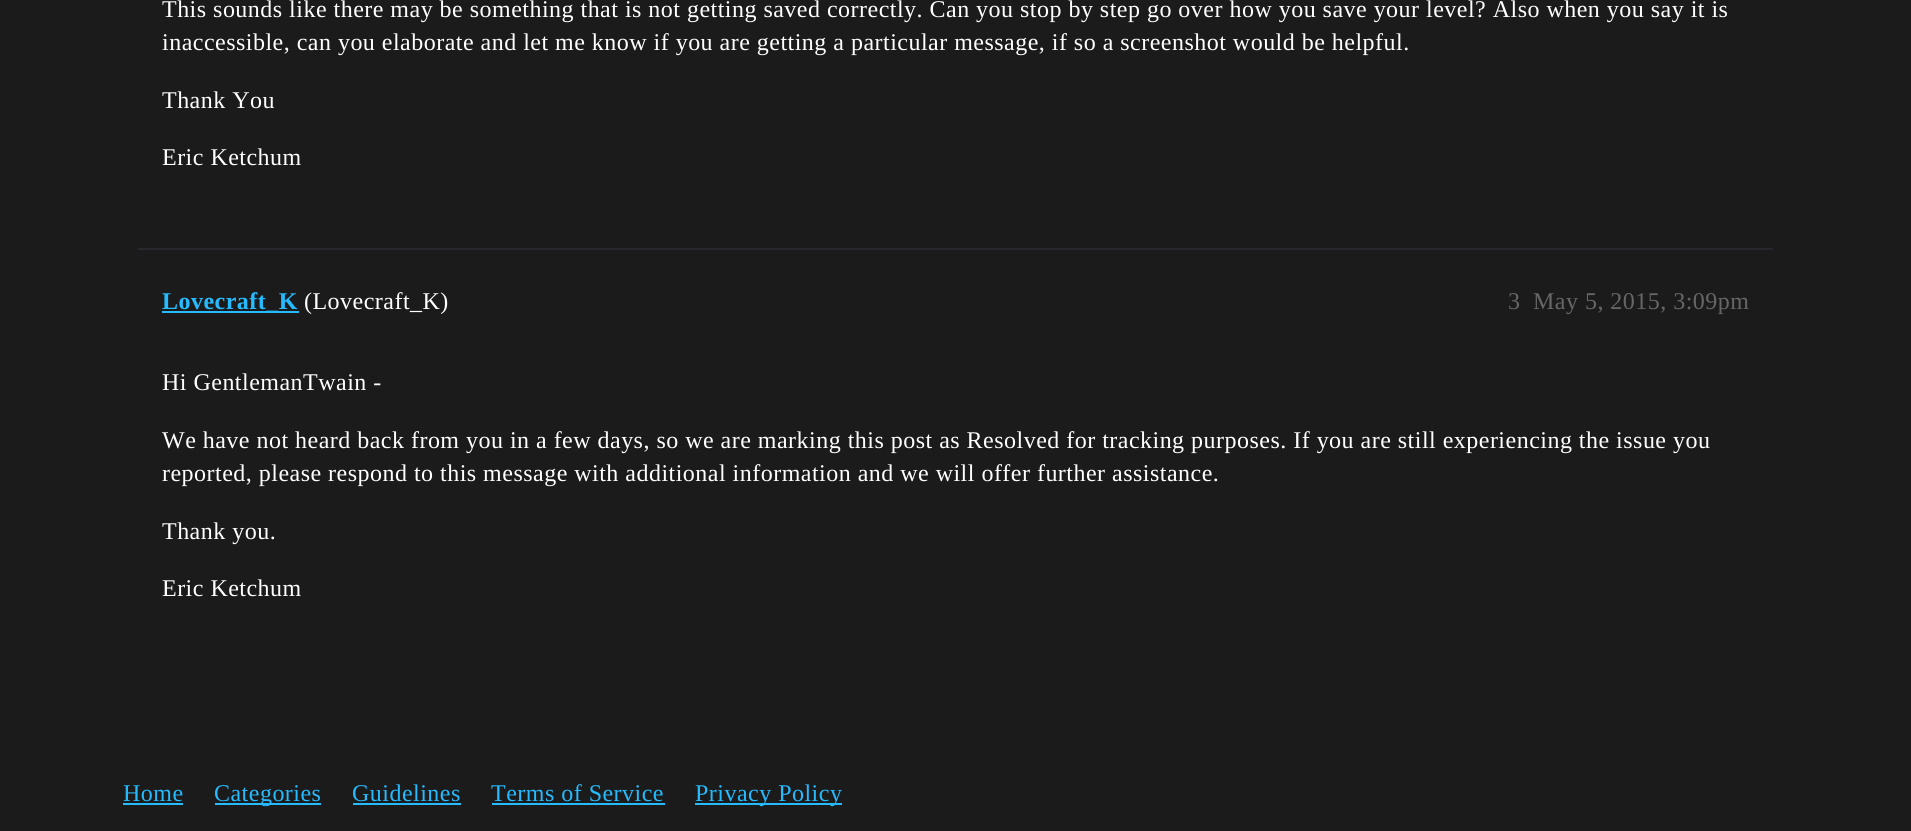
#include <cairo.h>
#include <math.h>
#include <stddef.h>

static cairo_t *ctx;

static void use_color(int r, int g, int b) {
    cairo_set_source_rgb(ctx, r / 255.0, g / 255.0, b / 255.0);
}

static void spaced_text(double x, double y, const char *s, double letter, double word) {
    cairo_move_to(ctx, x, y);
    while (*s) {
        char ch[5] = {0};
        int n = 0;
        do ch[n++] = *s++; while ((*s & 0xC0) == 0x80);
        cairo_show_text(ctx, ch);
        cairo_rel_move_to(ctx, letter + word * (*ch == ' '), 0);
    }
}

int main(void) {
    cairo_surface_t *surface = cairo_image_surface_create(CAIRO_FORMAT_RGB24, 1911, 831);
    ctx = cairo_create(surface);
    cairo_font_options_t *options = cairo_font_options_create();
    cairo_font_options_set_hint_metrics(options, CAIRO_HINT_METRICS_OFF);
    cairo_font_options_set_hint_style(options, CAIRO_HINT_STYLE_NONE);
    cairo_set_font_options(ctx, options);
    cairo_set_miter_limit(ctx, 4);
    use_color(27, 27, 27);
    cairo_paint(ctx);
    cairo_select_font_face(ctx, "Liberation Serif", CAIRO_FONT_SLANT_NORMAL, CAIRO_FONT_WEIGHT_NORMAL);
    cairo_set_font_size(ctx, 24);
    use_color(255, 255, 255);
    spaced_text(162, 17, "This sounds like there may be something that is not getting saved correctly. Can you stop by step go over how you save your level? Also when you say it is", 0.48, 0);
    spaced_text(162, 50, "inaccessible, can you elaborate and let me know if you are getting a particular message, if so a screenshot would be helpful.", 0.48, 0);
    spaced_text(162, 108, "Thank You", 0.48, 0);
    spaced_text(162, 165, "Eric Ketchum", 0.48, 0);
    use_color(40, 40, 44);
    cairo_rectangle(ctx, 138, 248, 1635, 2);
    cairo_fill(ctx);
    use_color(38, 187, 255);
    cairo_rectangle(ctx, 162, 311, 137, 2);
    cairo_fill(ctx);
    cairo_select_font_face(ctx, "Liberation Serif", CAIRO_FONT_SLANT_NORMAL, CAIRO_FONT_WEIGHT_BOLD);
    spaced_text(162, 309, "Lovecraft_K", 0.48, 0);
    cairo_select_font_face(ctx, "Liberation Serif", CAIRO_FONT_SLANT_NORMAL, CAIRO_FONT_WEIGHT_NORMAL);
    use_color(255, 255, 255);
    spaced_text(304, 309, "(Lovecraft_K)", 0.48, 0);
    use_color(102, 102, 102);
    spaced_text(1508, 309, "3", 0.48, 0);
    spaced_text(1533, 309, "May 5, 2015, 3:09pm", 0.48, 0);
    use_color(255, 255, 255);
    spaced_text(162, 390, "Hi GentlemanTwain -", 0.48, 0);
    spaced_text(162, 448, "We have not heard back from you in a few days, so we are marking this post as Resolved for tracking purposes. If you are still experiencing the issue you", 0.48, 0);
    spaced_text(162, 481, "reported, please respond to this message with additional information and we will offer further assistance.", 0.48, 0);
    spaced_text(162, 539, "Thank you.", 0.48, 0);
    spaced_text(162, 596, "Eric Ketchum", 0.48, 0);
    use_color(38, 187, 255);
    spaced_text(123, 801, "Home", 0.48, 0);
    cairo_rectangle(ctx, 123, 803, 60, 2);
    cairo_fill(ctx);
    cairo_rectangle(ctx, 215, 803, 106, 2);
    cairo_fill(ctx);
    spaced_text(214, 801, "Categories", 0.48, 0);
    spaced_text(352, 801, "Guidelines", 0.48, 0);
    cairo_rectangle(ctx, 353, 803, 108, 2);
    cairo_fill(ctx);
    spaced_text(491, 801, "Terms of Service", 0.48, 0);
    cairo_rectangle(ctx, 492, 803, 173, 2);
    cairo_fill(ctx);
    cairo_rectangle(ctx, 695, 803, 147, 2);
    cairo_fill(ctx);
    spaced_text(695, 801, "Privacy Policy", 0.48, 0);
    cairo_surface_write_to_png(surface, "result.png");
    cairo_font_options_destroy(options);
    cairo_destroy(ctx);
    cairo_surface_destroy(surface);
    return 0;
}
